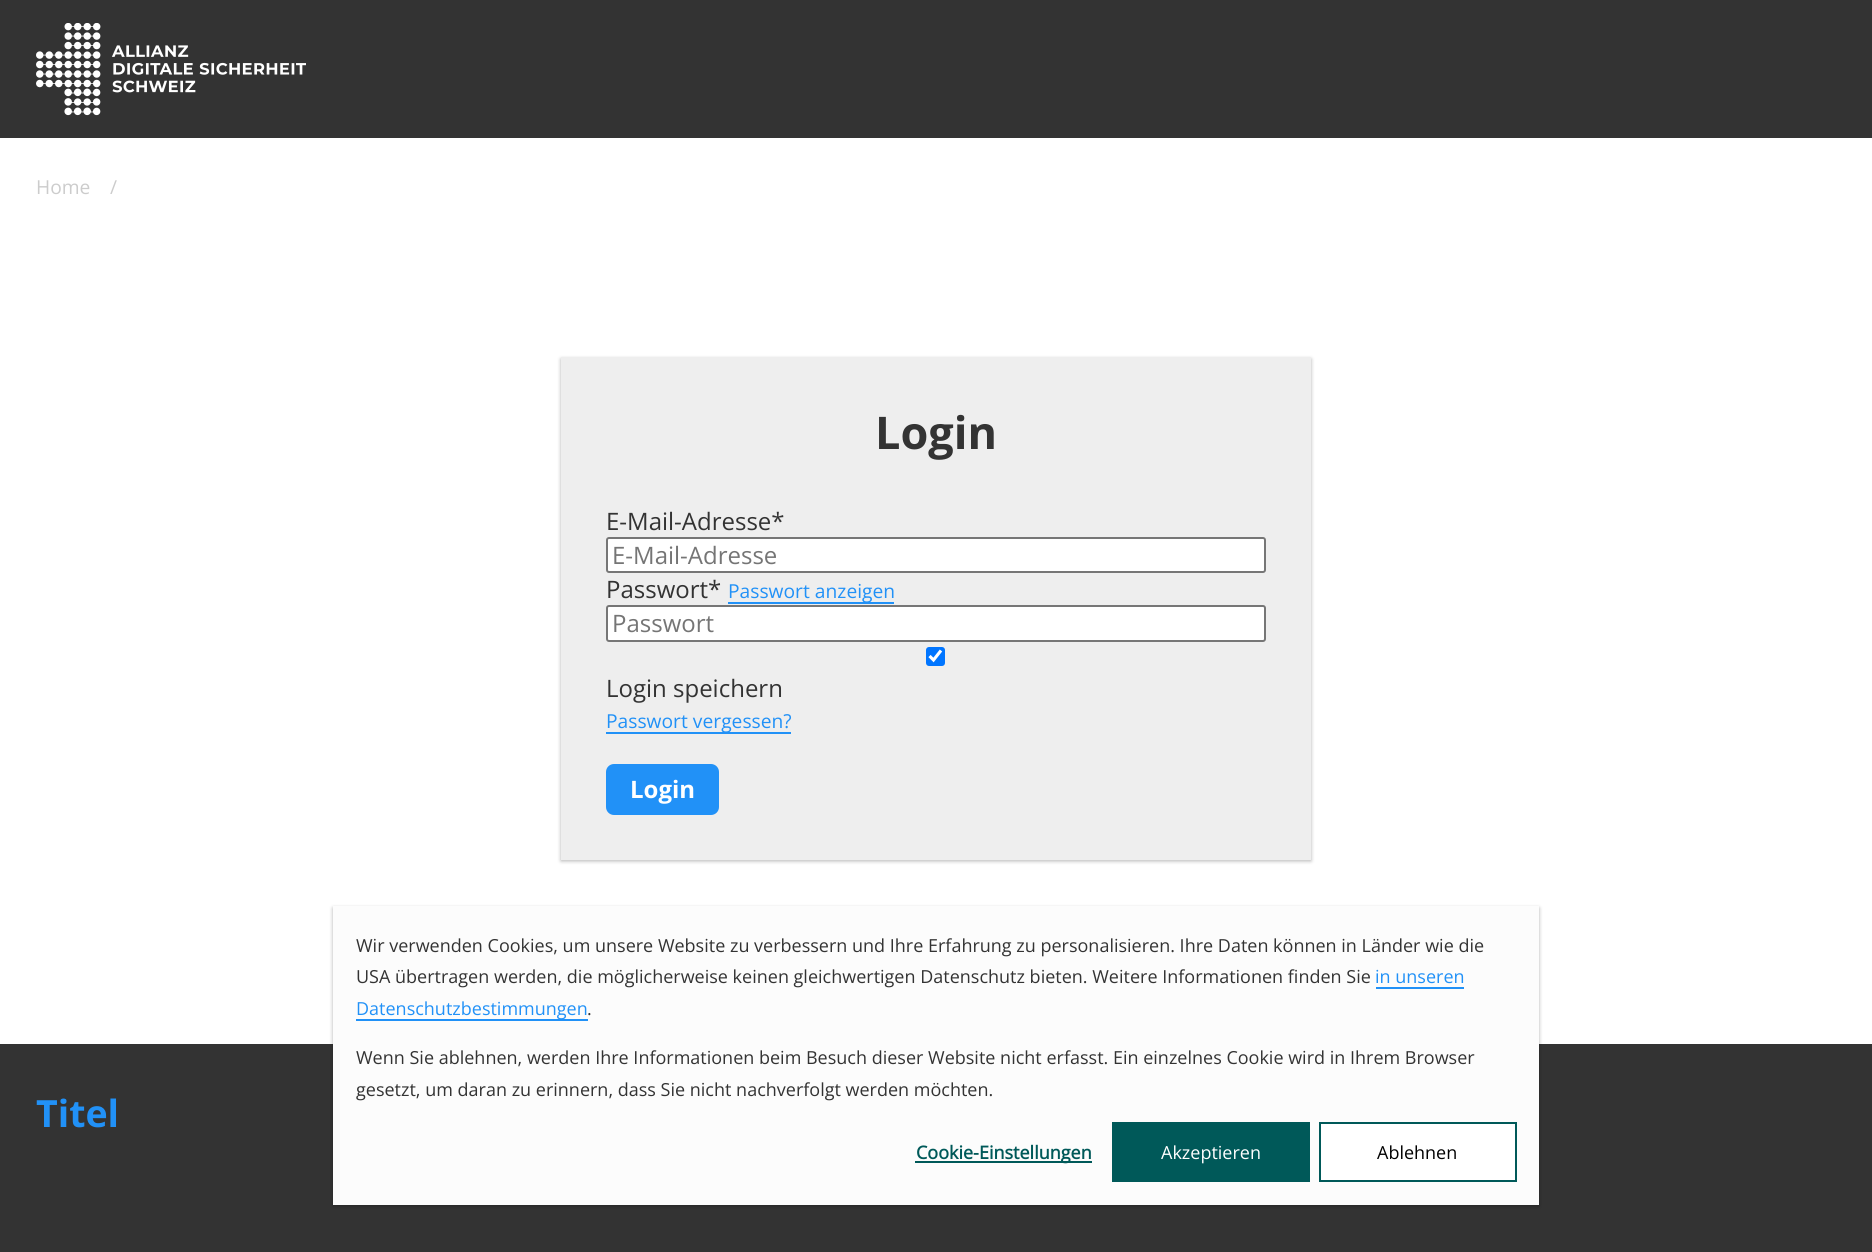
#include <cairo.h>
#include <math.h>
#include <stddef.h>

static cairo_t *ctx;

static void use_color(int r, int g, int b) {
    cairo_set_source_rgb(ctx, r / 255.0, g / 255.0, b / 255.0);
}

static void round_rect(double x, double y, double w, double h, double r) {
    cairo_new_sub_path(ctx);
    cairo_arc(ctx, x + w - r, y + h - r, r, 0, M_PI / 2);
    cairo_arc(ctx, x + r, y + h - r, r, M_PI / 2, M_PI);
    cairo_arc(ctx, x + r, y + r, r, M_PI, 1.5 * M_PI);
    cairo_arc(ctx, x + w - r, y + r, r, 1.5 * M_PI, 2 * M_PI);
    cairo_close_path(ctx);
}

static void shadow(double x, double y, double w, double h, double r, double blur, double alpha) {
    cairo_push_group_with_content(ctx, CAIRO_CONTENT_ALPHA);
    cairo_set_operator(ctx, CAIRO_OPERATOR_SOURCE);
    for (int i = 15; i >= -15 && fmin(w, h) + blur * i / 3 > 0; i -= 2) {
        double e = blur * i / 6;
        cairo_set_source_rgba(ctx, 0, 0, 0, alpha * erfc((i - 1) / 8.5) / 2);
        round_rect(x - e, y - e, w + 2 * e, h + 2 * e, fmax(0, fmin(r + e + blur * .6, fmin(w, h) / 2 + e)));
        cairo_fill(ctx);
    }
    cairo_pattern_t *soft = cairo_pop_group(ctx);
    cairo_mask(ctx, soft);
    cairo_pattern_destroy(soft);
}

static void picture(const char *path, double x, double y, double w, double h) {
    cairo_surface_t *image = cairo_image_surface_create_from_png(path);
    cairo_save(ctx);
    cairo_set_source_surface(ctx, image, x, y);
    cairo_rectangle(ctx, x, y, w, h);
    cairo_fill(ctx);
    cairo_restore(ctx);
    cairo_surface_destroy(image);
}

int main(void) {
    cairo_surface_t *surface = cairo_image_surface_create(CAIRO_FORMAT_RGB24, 1872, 1252);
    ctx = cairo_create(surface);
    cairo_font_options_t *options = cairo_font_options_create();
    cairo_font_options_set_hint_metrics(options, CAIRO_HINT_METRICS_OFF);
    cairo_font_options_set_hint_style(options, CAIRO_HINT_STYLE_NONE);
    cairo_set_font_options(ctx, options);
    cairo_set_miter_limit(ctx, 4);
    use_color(255, 255, 255);
    cairo_paint(ctx);
    use_color(51, 51, 51);
    cairo_rectangle(ctx, 0, 0, 1872, 138);
    cairo_fill(ctx);
    picture("img1.png", 36, 23, 270, 93);
    cairo_select_font_face(ctx, "Open Sans", CAIRO_FONT_SLANT_NORMAL, CAIRO_FONT_WEIGHT_NORMAL);
    cairo_set_font_size(ctx, 19.25);
    use_color(204, 204, 204);
    cairo_move_to(ctx, 36, 194);
    cairo_show_text(ctx, "Home");
    cairo_move_to(ctx, 110, 194);
    cairo_show_text(ctx, "/");
    use_color(0, 0, 0);
    shadow(561, 359, 750, 502, 0, 2, 0.3);
    use_color(238, 238, 238);
    cairo_rectangle(ctx, 561, 357, 750, 503);
    cairo_fill(ctx);
    cairo_select_font_face(ctx, "Open Sans", CAIRO_FONT_SLANT_NORMAL, CAIRO_FONT_WEIGHT_BOLD);
    cairo_set_font_size(ctx, 45);
    use_color(51, 51, 51);
    cairo_move_to(ctx, 875, 449);
    cairo_show_text(ctx, "Login");
    cairo_select_font_face(ctx, "Open Sans", CAIRO_FONT_SLANT_NORMAL, CAIRO_FONT_WEIGHT_NORMAL);
    cairo_set_font_size(ctx, 24);
    cairo_move_to(ctx, 606, 530);
    cairo_show_text(ctx, "E-Mail-Adresse*");
    use_color(255, 255, 255);
    round_rect(607, 538, 658, 34, 2);
    cairo_fill_preserve(ctx);
    use_color(118, 118, 118);
    cairo_stroke(ctx);
    use_color(117, 117, 117);
    cairo_move_to(ctx, 612, 564);
    cairo_show_text(ctx, "E-Mail-Adresse");
    use_color(51, 51, 51);
    cairo_move_to(ctx, 606, 598);
    cairo_show_text(ctx, "Passwort*");
    use_color(33, 145, 247);
    cairo_rectangle(ctx, 728, 602, 166, 2);
    cairo_fill(ctx);
    cairo_set_font_size(ctx, 19.25);
    cairo_move_to(ctx, 728, 598);
    cairo_show_text(ctx, "Passwort anzeigen");
    use_color(255, 255, 255);
    round_rect(607, 606, 658, 35, 2);
    cairo_fill_preserve(ctx);
    use_color(118, 118, 118);
    cairo_stroke(ctx);
    cairo_set_font_size(ctx, 24);
    use_color(117, 117, 117);
    cairo_move_to(ctx, 612, 632);
    cairo_show_text(ctx, "Passwort");
    use_color(0, 117, 255);
    round_rect(926, 647, 19, 19, 3);
    cairo_fill(ctx);
    cairo_new_path(ctx);
    cairo_move_to(ctx, 929.5, 656);
    cairo_line_to(ctx, 933.5, 660);
    cairo_line_to(ctx, 941, 650.5);
    use_color(255, 255, 255);
    cairo_set_line_width(ctx, 3.1);
    cairo_stroke(ctx);
    use_color(51, 51, 51);
    cairo_move_to(ctx, 606, 697);
    cairo_show_text(ctx, "Login speichern");
    use_color(33, 145, 247);
    cairo_rectangle(ctx, 606, 732, 185, 2);
    cairo_fill(ctx);
    cairo_set_font_size(ctx, 19.25);
    cairo_move_to(ctx, 606, 728);
    cairo_show_text(ctx, "Passwort vergessen?");
    round_rect(606, 764, 113, 51, 8);
    cairo_fill(ctx);
    cairo_select_font_face(ctx, "Open Sans", CAIRO_FONT_SLANT_NORMAL, CAIRO_FONT_WEIGHT_BOLD);
    cairo_set_font_size(ctx, 24);
    use_color(255, 255, 255);
    cairo_move_to(ctx, 630, 798);
    cairo_show_text(ctx, "Login");
    use_color(51, 51, 51);
    cairo_rectangle(ctx, 0, 1044, 1872, 208);
    cairo_fill(ctx);
    cairo_set_font_size(ctx, 37.5);
    use_color(33, 145, 247);
    cairo_move_to(ctx, 36, 1127);
    cairo_show_text(ctx, "Titel");
    use_color(0, 0, 0);
    shadow(333, 908, 1206, 298, 0, 2, 0.3);
    use_color(252, 252, 252);
    cairo_rectangle(ctx, 333, 906, 1206, 299);
    cairo_fill(ctx);
    cairo_select_font_face(ctx, "Open Sans", CAIRO_FONT_SLANT_NORMAL, CAIRO_FONT_WEIGHT_NORMAL);
    cairo_set_font_size(ctx, 18);
    use_color(51, 51, 51);
    cairo_move_to(ctx, 356, 952);
    cairo_show_text(ctx, "Wir verwenden Cookies, um unsere Website zu verbessern und Ihre Erfahrung zu personalisieren. Ihre Daten können in Länder wie die");
    cairo_move_to(ctx, 356, 983);
    cairo_show_text(ctx, "USA übertragen werden, die möglicherweise keinen gleichwertigen Datenschutz bieten. Weitere Informationen finden Sie");
    use_color(33, 145, 247);
    cairo_move_to(ctx, 1375, 983);
    cairo_show_text(ctx, "in unseren");
    cairo_rectangle(ctx, 1376, 987, 88, 2);
    cairo_fill(ctx);
    cairo_rectangle(ctx, 356, 1019, 232, 2);
    cairo_fill(ctx);
    cairo_move_to(ctx, 356, 1015);
    cairo_show_text(ctx, "Datenschutzbestimmungen");
    use_color(51, 51, 51);
    cairo_move_to(ctx, 587, 1015);
    cairo_show_text(ctx, ".");
    cairo_move_to(ctx, 356, 1064);
    cairo_show_text(ctx, "Wenn Sie ablehnen, werden Ihre Informationen beim Besuch dieser Website nicht erfasst. Ein einzelnes Cookie wird in Ihrem Browser");
    cairo_move_to(ctx, 356, 1096);
    cairo_show_text(ctx, "gesetzt, um daran zu erinnern, dass Sie nicht nachverfolgt werden möchten.");
    use_color(0, 89, 89);
    cairo_rectangle(ctx, 915, 1161, 177, 2);
    cairo_fill(ctx);
    cairo_select_font_face(ctx, "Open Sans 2", CAIRO_FONT_SLANT_NORMAL, CAIRO_FONT_WEIGHT_BOLD);
    cairo_move_to(ctx, 916, 1159);
    cairo_show_text(ctx, "Cookie-Einstellungen");
    cairo_rectangle(ctx, 1112, 1122, 198, 60);
    cairo_fill(ctx);
    cairo_select_font_face(ctx, "Open Sans", CAIRO_FONT_SLANT_NORMAL, CAIRO_FONT_WEIGHT_NORMAL);
    use_color(255, 255, 255);
    cairo_move_to(ctx, 1161, 1159);
    cairo_show_text(ctx, "Akzeptieren");
    cairo_rectangle(ctx, 1320, 1123, 196, 58);
    cairo_fill_preserve(ctx);
    use_color(0, 89, 89);
    cairo_set_line_width(ctx, 2);
    cairo_stroke(ctx);
    use_color(0, 0, 0);
    cairo_move_to(ctx, 1377, 1159);
    cairo_show_text(ctx, "Ablehnen");
    cairo_surface_write_to_png(surface, "result.png");
    cairo_font_options_destroy(options);
    cairo_destroy(ctx);
    cairo_surface_destroy(surface);
    return 0;
}
